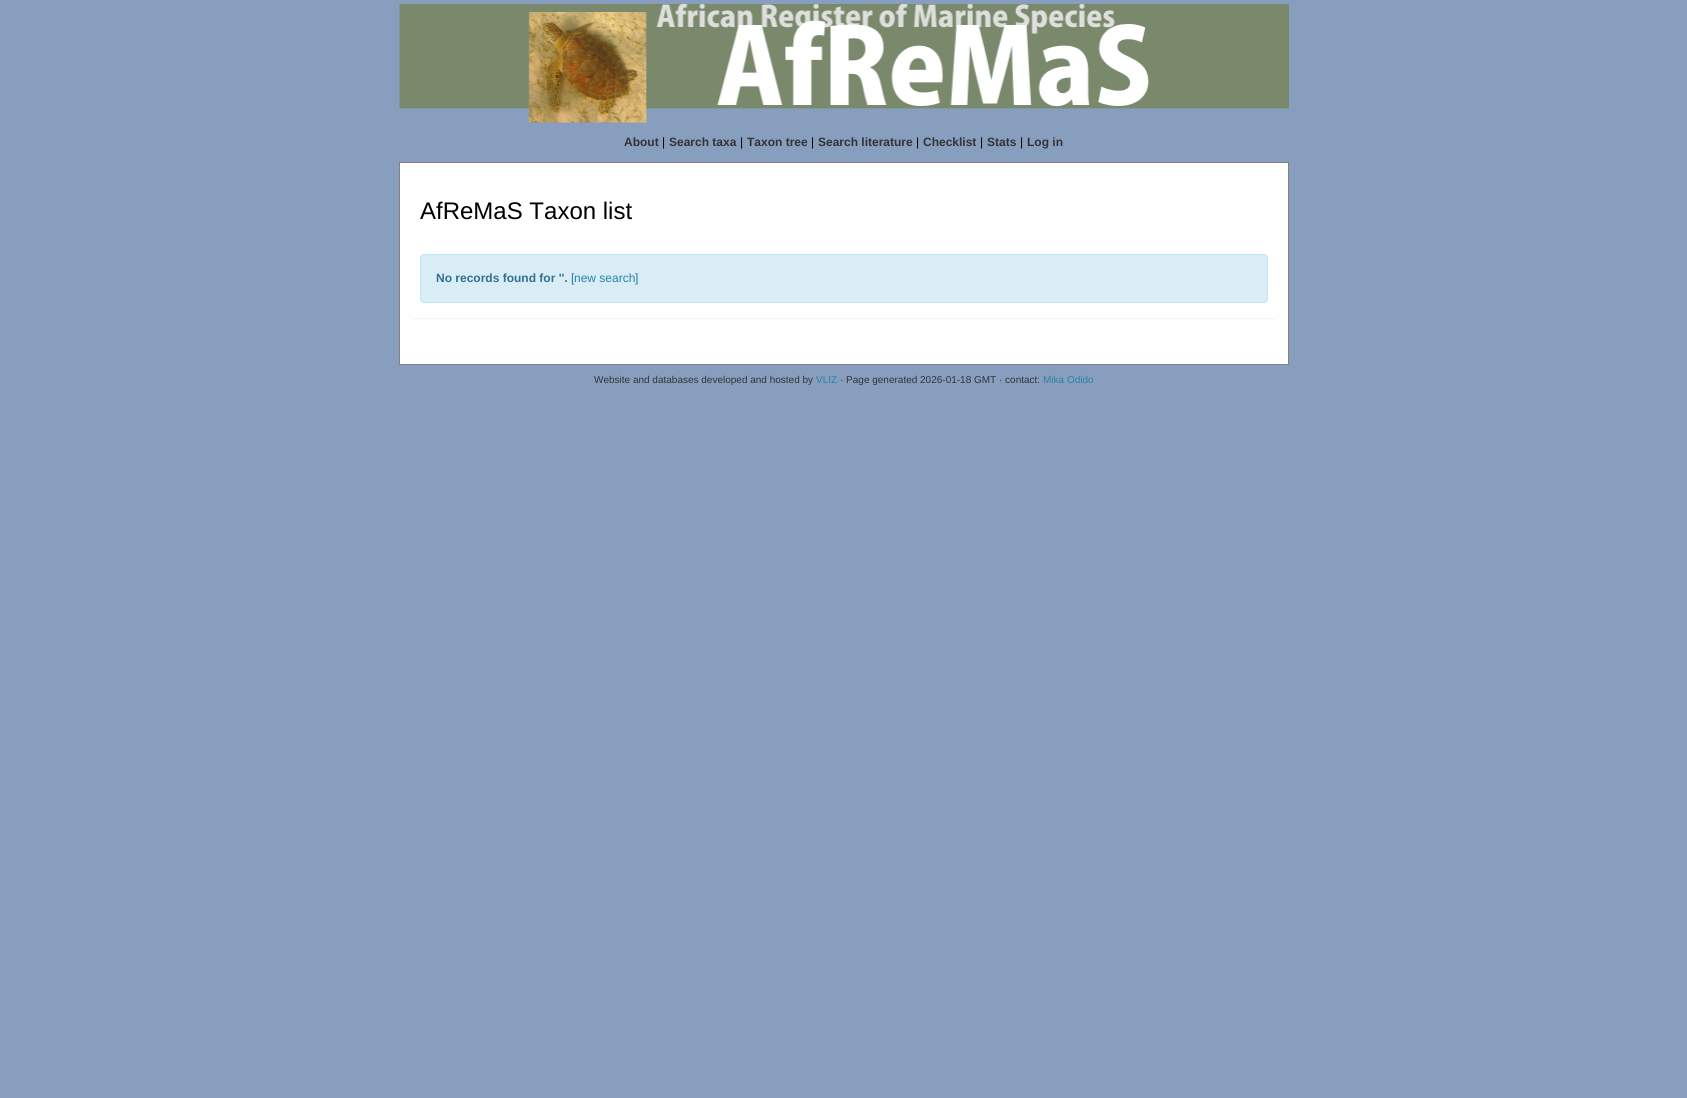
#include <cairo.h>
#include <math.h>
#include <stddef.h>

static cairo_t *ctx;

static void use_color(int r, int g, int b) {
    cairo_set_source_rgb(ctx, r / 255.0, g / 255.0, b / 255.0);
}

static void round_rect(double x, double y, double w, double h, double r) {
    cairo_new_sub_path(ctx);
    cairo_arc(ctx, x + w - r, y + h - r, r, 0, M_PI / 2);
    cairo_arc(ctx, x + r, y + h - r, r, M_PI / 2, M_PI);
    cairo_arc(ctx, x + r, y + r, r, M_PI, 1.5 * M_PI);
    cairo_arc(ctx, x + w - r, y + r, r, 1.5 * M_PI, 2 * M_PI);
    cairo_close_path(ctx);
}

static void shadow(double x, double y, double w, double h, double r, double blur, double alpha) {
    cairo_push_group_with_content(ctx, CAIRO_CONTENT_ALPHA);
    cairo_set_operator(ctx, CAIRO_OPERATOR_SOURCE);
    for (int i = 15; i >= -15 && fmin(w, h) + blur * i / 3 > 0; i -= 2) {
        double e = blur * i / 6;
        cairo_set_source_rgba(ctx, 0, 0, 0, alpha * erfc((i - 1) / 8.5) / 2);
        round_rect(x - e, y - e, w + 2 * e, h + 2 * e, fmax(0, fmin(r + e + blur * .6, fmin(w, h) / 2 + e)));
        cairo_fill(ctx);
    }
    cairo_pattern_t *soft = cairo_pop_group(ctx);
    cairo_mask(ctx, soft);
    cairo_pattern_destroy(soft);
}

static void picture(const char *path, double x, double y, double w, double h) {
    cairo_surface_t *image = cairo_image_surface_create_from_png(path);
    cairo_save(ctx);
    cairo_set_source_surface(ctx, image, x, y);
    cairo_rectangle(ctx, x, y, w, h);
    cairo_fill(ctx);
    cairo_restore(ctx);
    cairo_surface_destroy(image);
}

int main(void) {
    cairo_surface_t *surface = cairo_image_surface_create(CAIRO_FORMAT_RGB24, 1687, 1098);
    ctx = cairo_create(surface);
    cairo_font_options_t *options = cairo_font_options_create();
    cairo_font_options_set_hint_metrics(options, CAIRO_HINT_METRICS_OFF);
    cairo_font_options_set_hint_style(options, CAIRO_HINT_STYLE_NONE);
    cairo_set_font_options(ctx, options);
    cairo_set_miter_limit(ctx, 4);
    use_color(136, 158, 190);
    cairo_paint(ctx);
    picture("img1.png", 399, 4, 890, 119);
    cairo_select_font_face(ctx, "Liberation Sans", CAIRO_FONT_SLANT_NORMAL, CAIRO_FONT_WEIGHT_BOLD);
    cairo_set_font_size(ctx, 12);
    use_color(51, 51, 51);
    cairo_move_to(ctx, 624, 146);
    cairo_show_text(ctx, "About");
    cairo_select_font_face(ctx, "Liberation Sans", CAIRO_FONT_SLANT_NORMAL, CAIRO_FONT_WEIGHT_NORMAL);
    use_color(0, 0, 0);
    cairo_move_to(ctx, 662, 146);
    cairo_show_text(ctx, "|");
    cairo_select_font_face(ctx, "Liberation Sans", CAIRO_FONT_SLANT_NORMAL, CAIRO_FONT_WEIGHT_BOLD);
    use_color(51, 51, 51);
    cairo_move_to(ctx, 669, 146);
    cairo_show_text(ctx, "Search taxa");
    cairo_select_font_face(ctx, "Liberation Sans", CAIRO_FONT_SLANT_NORMAL, CAIRO_FONT_WEIGHT_NORMAL);
    use_color(0, 0, 0);
    cairo_move_to(ctx, 740, 146);
    cairo_show_text(ctx, "|");
    cairo_select_font_face(ctx, "Liberation Sans", CAIRO_FONT_SLANT_NORMAL, CAIRO_FONT_WEIGHT_BOLD);
    use_color(51, 51, 51);
    cairo_move_to(ctx, 747, 146);
    cairo_show_text(ctx, "Taxon tree");
    cairo_select_font_face(ctx, "Liberation Sans", CAIRO_FONT_SLANT_NORMAL, CAIRO_FONT_WEIGHT_NORMAL);
    use_color(0, 0, 0);
    cairo_move_to(ctx, 811, 146);
    cairo_show_text(ctx, "|");
    cairo_select_font_face(ctx, "Liberation Sans", CAIRO_FONT_SLANT_NORMAL, CAIRO_FONT_WEIGHT_BOLD);
    use_color(51, 51, 51);
    cairo_move_to(ctx, 818, 146);
    cairo_show_text(ctx, "Search literature");
    cairo_select_font_face(ctx, "Liberation Sans", CAIRO_FONT_SLANT_NORMAL, CAIRO_FONT_WEIGHT_NORMAL);
    use_color(0, 0, 0);
    cairo_move_to(ctx, 916, 146);
    cairo_show_text(ctx, "|");
    cairo_select_font_face(ctx, "Liberation Sans", CAIRO_FONT_SLANT_NORMAL, CAIRO_FONT_WEIGHT_BOLD);
    use_color(51, 51, 51);
    cairo_move_to(ctx, 923, 146);
    cairo_show_text(ctx, "Checklist");
    cairo_select_font_face(ctx, "Liberation Sans", CAIRO_FONT_SLANT_NORMAL, CAIRO_FONT_WEIGHT_NORMAL);
    use_color(0, 0, 0);
    cairo_move_to(ctx, 980, 146);
    cairo_show_text(ctx, "|");
    cairo_select_font_face(ctx, "Liberation Sans", CAIRO_FONT_SLANT_NORMAL, CAIRO_FONT_WEIGHT_BOLD);
    use_color(51, 51, 51);
    cairo_move_to(ctx, 987, 146);
    cairo_show_text(ctx, "Stats");
    cairo_select_font_face(ctx, "Liberation Sans", CAIRO_FONT_SLANT_NORMAL, CAIRO_FONT_WEIGHT_NORMAL);
    use_color(0, 0, 0);
    cairo_move_to(ctx, 1020, 146);
    cairo_show_text(ctx, "|");
    cairo_select_font_face(ctx, "Liberation Sans", CAIRO_FONT_SLANT_NORMAL, CAIRO_FONT_WEIGHT_BOLD);
    use_color(51, 51, 51);
    cairo_move_to(ctx, 1027, 146);
    cairo_show_text(ctx, "Log in");
    use_color(255, 255, 255);
    cairo_rectangle(ctx, 399.5, 162.5, 889, 202);
    cairo_fill_preserve(ctx);
    use_color(130, 130, 130);
    cairo_set_line_width(ctx, 1);
    cairo_stroke(ctx);
    cairo_save(ctx);
    cairo_set_fill_rule(ctx, CAIRO_FILL_RULE_EVEN_ODD);
    cairo_new_path(ctx);
    cairo_move_to(ctx, 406, 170);
    cairo_line_to(ctx, 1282, 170);
    cairo_line_to(ctx, 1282, 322);
    cairo_line_to(ctx, 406, 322);
    cairo_close_path(ctx);
    cairo_move_to(ctx, 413, 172);
    cairo_line_to(ctx, 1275, 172);
    cairo_curve_to(ctx, 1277, 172, 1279, 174, 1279, 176);
    cairo_line_to(ctx, 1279, 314);
    cairo_curve_to(ctx, 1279, 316, 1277, 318, 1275, 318);
    cairo_line_to(ctx, 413, 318);
    cairo_curve_to(ctx, 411, 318, 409, 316, 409, 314);
    cairo_line_to(ctx, 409, 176);
    cairo_curve_to(ctx, 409, 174, 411, 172, 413, 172);
    cairo_close_path(ctx);
    cairo_clip(ctx);
    use_color(0, 0, 0);
    shadow(409, 173, 870, 146, 4, 0.5, 0.05);
    cairo_restore(ctx);
    cairo_select_font_face(ctx, "Liberation Sans", CAIRO_FONT_SLANT_NORMAL, CAIRO_FONT_WEIGHT_NORMAL);
    cairo_set_font_size(ctx, 24);
    use_color(0, 0, 0);
    cairo_move_to(ctx, 420, 219);
    cairo_show_text(ctx, "AfReMaS Taxon list");
    use_color(217, 237, 247);
    round_rect(420.5, 254.5, 847, 48, 3.5);
    cairo_fill_preserve(ctx);
    use_color(188, 232, 241);
    cairo_stroke(ctx);
    cairo_select_font_face(ctx, "Liberation Sans", CAIRO_FONT_SLANT_NORMAL, CAIRO_FONT_WEIGHT_BOLD);
    cairo_set_font_size(ctx, 12);
    use_color(49, 112, 143);
    cairo_move_to(ctx, 436, 282);
    cairo_show_text(ctx, "No records found for ''.");
    cairo_select_font_face(ctx, "Liberation Sans", CAIRO_FONT_SLANT_NORMAL, CAIRO_FONT_WEIGHT_NORMAL);
    cairo_move_to(ctx, 571, 282);
    cairo_show_text(ctx, "[");
    use_color(38, 131, 166);
    cairo_move_to(ctx, 574, 282);
    cairo_show_text(ctx, "new search");
    use_color(49, 112, 143);
    cairo_move_to(ctx, 635, 282);
    cairo_show_text(ctx, "]");
    cairo_set_font_size(ctx, 10);
    use_color(51, 51, 51);
    cairo_move_to(ctx, 594, 383);
    cairo_show_text(ctx, "Website and databases developed and hosted by");
    use_color(38, 131, 166);
    cairo_move_to(ctx, 816, 383);
    cairo_show_text(ctx, "VLIZ");
    use_color(51, 51, 51);
    cairo_move_to(ctx, 840, 383);
    cairo_show_text(ctx, "· Page generated 2026-01-18 GMT · contact:");
    use_color(38, 131, 166);
    cairo_move_to(ctx, 1043, 383);
    cairo_show_text(ctx, "Mika Odido");
    cairo_surface_write_to_png(surface, "result.png");
    cairo_font_options_destroy(options);
    cairo_destroy(ctx);
    cairo_surface_destroy(surface);
    return 0;
}
